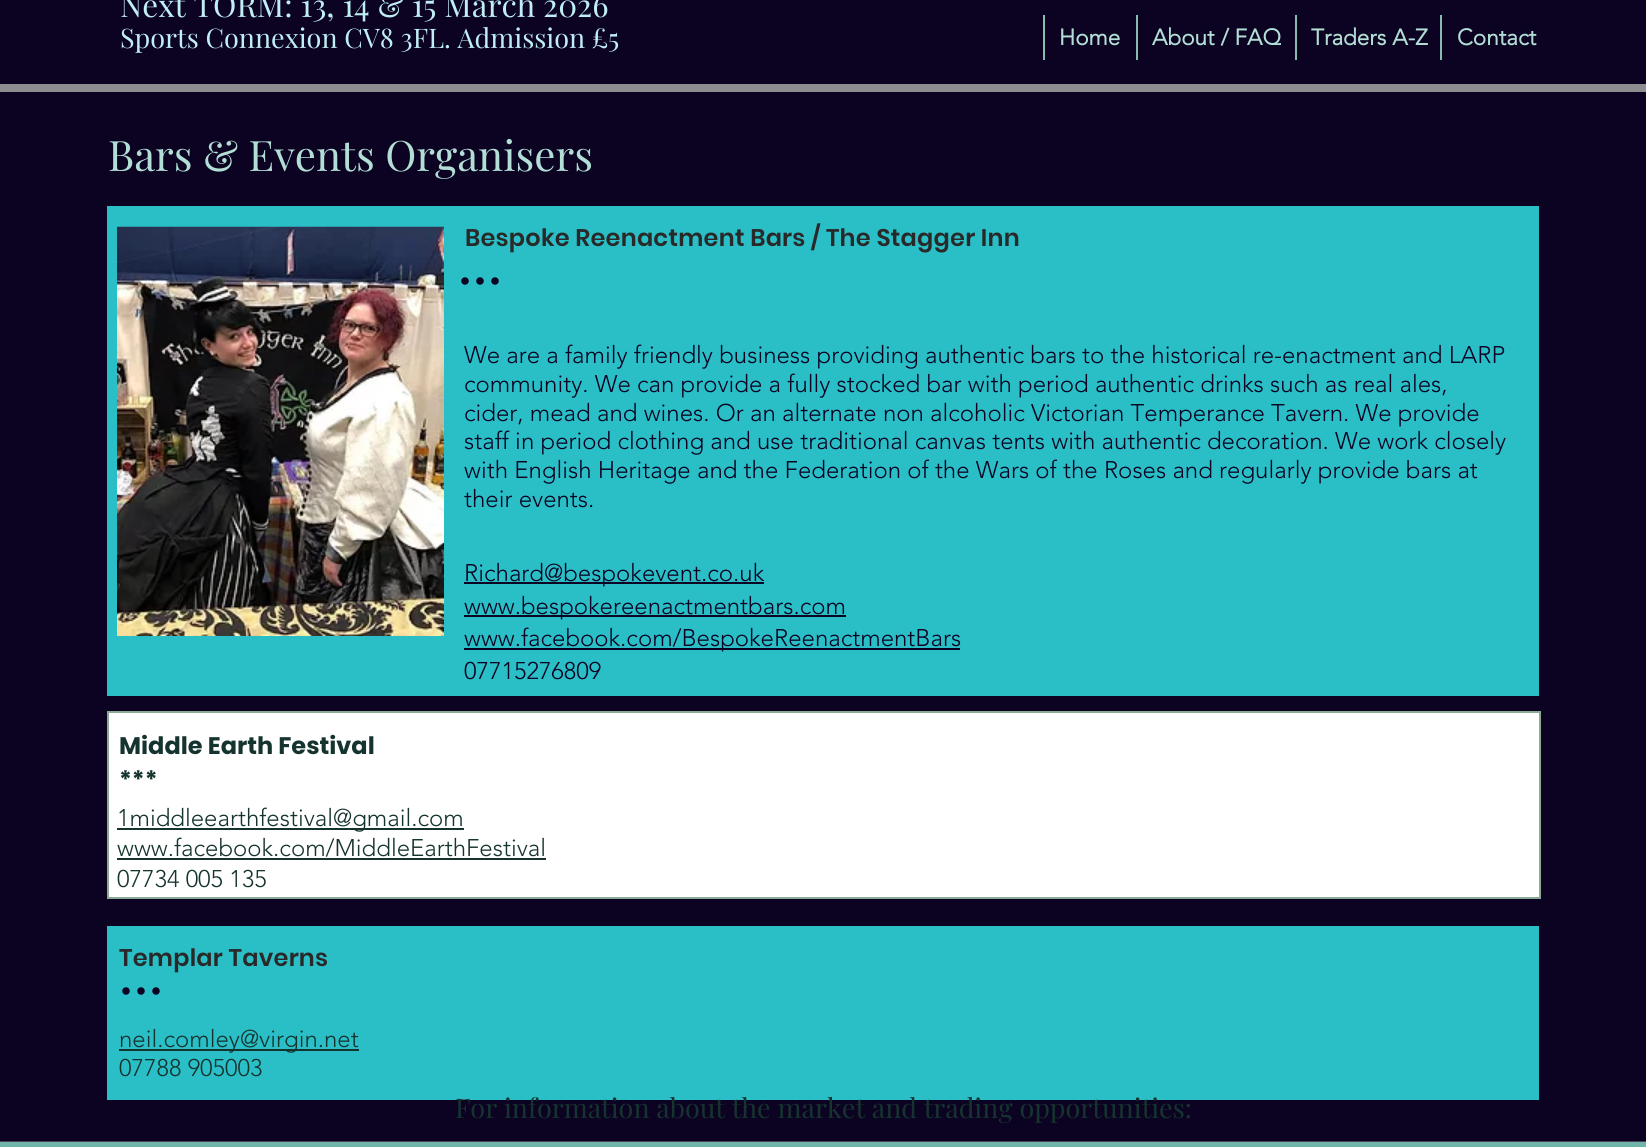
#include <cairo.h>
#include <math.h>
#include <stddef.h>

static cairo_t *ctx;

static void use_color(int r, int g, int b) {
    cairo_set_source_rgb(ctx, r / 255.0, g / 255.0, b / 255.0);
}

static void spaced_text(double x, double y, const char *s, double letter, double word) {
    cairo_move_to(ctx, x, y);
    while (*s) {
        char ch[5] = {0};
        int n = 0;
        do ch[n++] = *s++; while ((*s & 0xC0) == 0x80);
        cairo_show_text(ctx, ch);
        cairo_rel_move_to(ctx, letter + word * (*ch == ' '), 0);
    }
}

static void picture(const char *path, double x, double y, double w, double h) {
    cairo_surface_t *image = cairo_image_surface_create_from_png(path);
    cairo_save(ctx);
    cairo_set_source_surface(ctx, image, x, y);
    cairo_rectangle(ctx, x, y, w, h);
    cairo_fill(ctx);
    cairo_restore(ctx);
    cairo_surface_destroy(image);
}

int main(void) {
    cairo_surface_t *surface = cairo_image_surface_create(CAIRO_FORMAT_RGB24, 1646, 1147);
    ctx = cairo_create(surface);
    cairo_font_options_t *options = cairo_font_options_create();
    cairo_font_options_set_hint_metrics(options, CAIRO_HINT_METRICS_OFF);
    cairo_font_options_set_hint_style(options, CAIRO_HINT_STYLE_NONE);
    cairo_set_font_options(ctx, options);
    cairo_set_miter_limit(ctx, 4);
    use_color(11, 3, 33);
    cairo_paint(ctx);
    cairo_select_font_face(ctx, "Playfair Display", CAIRO_FONT_SLANT_NORMAL, CAIRO_FONT_WEIGHT_NORMAL);
    cairo_set_font_size(ctx, 31.5);
    use_color(192, 238, 245);
    cairo_move_to(ctx, 120, 17);
    cairo_show_text(ctx, "Next TORM: 13, 14 & 15 March 2026");
    cairo_set_font_size(ctx, 27);
    cairo_move_to(ctx, 120, 48);
    cairo_show_text(ctx, "Sports Connexion CV8 3FL. Admission £5");
    use_color(133, 189, 179);
    cairo_rectangle(ctx, 1043, 15, 2, 45);
    cairo_fill(ctx);
    cairo_select_font_face(ctx, "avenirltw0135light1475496", CAIRO_FONT_SLANT_NORMAL, CAIRO_FONT_WEIGHT_BOLD);
    cairo_set_font_size(ctx, 22.5);
    use_color(178, 222, 214);
    cairo_move_to(ctx, 1059, 45);
    cairo_show_text(ctx, "Home");
    use_color(133, 189, 179);
    cairo_rectangle(ctx, 1136, 15, 2, 45);
    cairo_fill(ctx);
    use_color(178, 222, 214);
    cairo_move_to(ctx, 1152, 45);
    cairo_show_text(ctx, "About / FAQ");
    use_color(133, 189, 179);
    cairo_rectangle(ctx, 1295, 15, 2, 45);
    cairo_fill(ctx);
    use_color(178, 222, 214);
    cairo_move_to(ctx, 1311, 45);
    cairo_show_text(ctx, "Traders A-Z");
    use_color(133, 189, 179);
    cairo_rectangle(ctx, 1440, 15, 2, 45);
    cairo_fill(ctx);
    use_color(178, 222, 214);
    cairo_move_to(ctx, 1457, 45);
    cairo_show_text(ctx, "Contact");
    use_color(142, 141, 145);
    cairo_rectangle(ctx, 0, 84, 1646, 8);
    cairo_fill(ctx);
    cairo_select_font_face(ctx, "Playfair Display", CAIRO_FONT_SLANT_NORMAL, CAIRO_FONT_WEIGHT_NORMAL);
    cairo_set_font_size(ctx, 42);
    use_color(178, 222, 214);
    cairo_move_to(ctx, 108, 171);
    cairo_show_text(ctx, "Bars & Events Organisers");
    use_color(42, 191, 199);
    cairo_rectangle(ctx, 107, 206, 1432, 490);
    cairo_fill(ctx);
    picture("img1.png", 117, 226, 327, 410);
    cairo_select_font_face(ctx, "Poppins SemiBold", CAIRO_FONT_SLANT_NORMAL, CAIRO_FONT_WEIGHT_NORMAL);
    cairo_set_font_size(ctx, 24);
    use_color(41, 41, 41);
    spaced_text(465, 246, "Bespoke Reenactment Bars / The Stagger Inn", 0.25, 0);
    cairo_new_path(ctx);
    cairo_move_to(ctx, 465, 281);
    cairo_line_to(ctx, 505.5, 281);
    use_color(11, 3, 33);
    cairo_set_line_width(ctx, 7.5);
    cairo_set_line_cap(ctx, CAIRO_LINE_CAP_ROUND);
    cairo_set_dash(ctx, (double[]){0, 15}, 2, 0);
    cairo_stroke(ctx);
    cairo_select_font_face(ctx, "avenirltw0135light1475496 Light", CAIRO_FONT_SLANT_NORMAL, CAIRO_FONT_WEIGHT_NORMAL);
    cairo_move_to(ctx, 464, 363);
    cairo_show_text(ctx, "We are a family friendly business providing authentic bars to the historical re-enactment and LARP");
    cairo_move_to(ctx, 464, 392);
    cairo_show_text(ctx, "community. We can provide a fully stocked bar with period authentic drinks such as real ales,");
    cairo_move_to(ctx, 464, 421);
    cairo_show_text(ctx, "cider, mead and wines. Or an alternate non alcoholic Victorian Temperance Tavern. We provide");
    cairo_move_to(ctx, 464, 449);
    cairo_show_text(ctx, "staff in period clothing and use traditional canvas tents with authentic decoration. We work closely");
    cairo_move_to(ctx, 464, 478);
    cairo_show_text(ctx, "with English Heritage and the Federation of the Wars of the Roses and regularly provide bars at");
    cairo_move_to(ctx, 464, 507);
    cairo_show_text(ctx, "their events.");
    cairo_rectangle(ctx, 464, 582, 300, 2);
    cairo_fill(ctx);
    cairo_move_to(ctx, 464, 581);
    cairo_show_text(ctx, "Richard@bespokevent.co.uk");
    cairo_rectangle(ctx, 464, 615, 382, 2);
    cairo_fill(ctx);
    cairo_move_to(ctx, 464, 614);
    cairo_show_text(ctx, "www.bespokereenactmentbars.com");
    cairo_rectangle(ctx, 464, 648, 496, 2);
    cairo_fill(ctx);
    cairo_move_to(ctx, 464, 646);
    cairo_show_text(ctx, "www.facebook.com/BespokeReenactmentBars");
    cairo_move_to(ctx, 464, 679);
    cairo_show_text(ctx, "07715276809");
    use_color(255, 255, 255);
    cairo_rectangle(ctx, 108, 712, 1432, 186);
    cairo_fill_preserve(ctx);
    use_color(139, 170, 149);
    cairo_set_line_width(ctx, 2);
    cairo_set_line_cap(ctx, CAIRO_LINE_CAP_BUTT);
    cairo_set_dash(ctx, NULL, 0, 0);
    cairo_stroke(ctx);
    cairo_select_font_face(ctx, "Poppins", CAIRO_FONT_SLANT_NORMAL, CAIRO_FONT_WEIGHT_BOLD);
    use_color(21, 52, 47);
    cairo_move_to(ctx, 119, 754);
    cairo_show_text(ctx, "Middle Earth Festival");
    cairo_move_to(ctx, 119, 788);
    cairo_show_text(ctx, "***");
    cairo_rectangle(ctx, 117, 828, 347, 2);
    cairo_fill(ctx);
    cairo_select_font_face(ctx, "avenirltw0135light1475496 Light", CAIRO_FONT_SLANT_NORMAL, CAIRO_FONT_WEIGHT_NORMAL);
    cairo_move_to(ctx, 117, 826);
    cairo_show_text(ctx, "1middleearthfestival@gmail.com");
    cairo_move_to(ctx, 117, 856);
    cairo_show_text(ctx, "www.facebook.com/MiddleEarthFestival");
    cairo_rectangle(ctx, 117, 858, 429, 2);
    cairo_fill(ctx);
    cairo_move_to(ctx, 117, 887);
    cairo_show_text(ctx, "07734 005 135");
    use_color(42, 191, 199);
    cairo_rectangle(ctx, 107, 926, 1432, 174);
    cairo_fill(ctx);
    cairo_select_font_face(ctx, "Poppins SemiBold", CAIRO_FONT_SLANT_NORMAL, CAIRO_FONT_WEIGHT_NORMAL);
    use_color(41, 41, 41);
    spaced_text(119, 966, "Templar Taverns", 0.25, 0);
    cairo_new_path(ctx);
    cairo_move_to(ctx, 126, 991);
    cairo_line_to(ctx, 166.5, 991);
    use_color(11, 3, 33);
    cairo_set_line_width(ctx, 7.5);
    cairo_set_line_cap(ctx, CAIRO_LINE_CAP_ROUND);
    cairo_set_dash(ctx, (double[]){0, 15}, 2, 0);
    cairo_stroke(ctx);
    use_color(21, 52, 47);
    cairo_rectangle(ctx, 119, 1049, 240, 2);
    cairo_fill(ctx);
    cairo_select_font_face(ctx, "avenirltw0135light1475496 Light", CAIRO_FONT_SLANT_NORMAL, CAIRO_FONT_WEIGHT_NORMAL);
    cairo_move_to(ctx, 119, 1047);
    cairo_show_text(ctx, "neil.comley@virgin.net");
    cairo_move_to(ctx, 119, 1076);
    cairo_show_text(ctx, "07788 905003");
    cairo_select_font_face(ctx, "Playfair Display", CAIRO_FONT_SLANT_NORMAL, CAIRO_FONT_WEIGHT_NORMAL);
    cairo_set_font_size(ctx, 27);
    cairo_move_to(ctx, 455, 1118);
    cairo_show_text(ctx, "For information about the market and trading opportunities:");
    use_color(112, 181, 169);
    cairo_rectangle(ctx, 0, 1142, 1646, 5);
    cairo_fill(ctx);
    use_color(72, 66, 89);
    cairo_rectangle(ctx, 0, 1141, 1646, 1);
    cairo_fill(ctx);
    cairo_surface_write_to_png(surface, "result.png");
    cairo_font_options_destroy(options);
    cairo_destroy(ctx);
    cairo_surface_destroy(surface);
    return 0;
}
